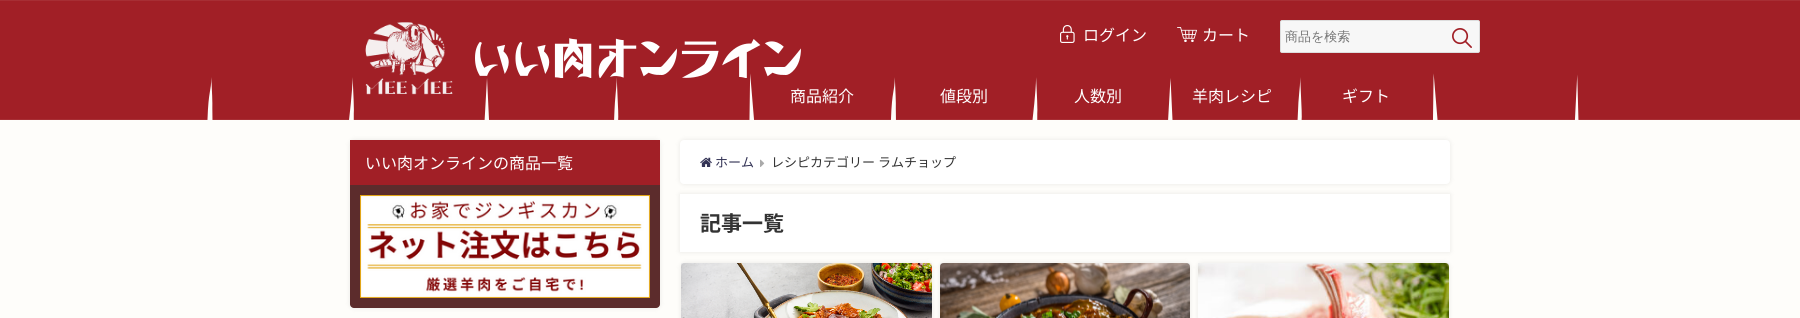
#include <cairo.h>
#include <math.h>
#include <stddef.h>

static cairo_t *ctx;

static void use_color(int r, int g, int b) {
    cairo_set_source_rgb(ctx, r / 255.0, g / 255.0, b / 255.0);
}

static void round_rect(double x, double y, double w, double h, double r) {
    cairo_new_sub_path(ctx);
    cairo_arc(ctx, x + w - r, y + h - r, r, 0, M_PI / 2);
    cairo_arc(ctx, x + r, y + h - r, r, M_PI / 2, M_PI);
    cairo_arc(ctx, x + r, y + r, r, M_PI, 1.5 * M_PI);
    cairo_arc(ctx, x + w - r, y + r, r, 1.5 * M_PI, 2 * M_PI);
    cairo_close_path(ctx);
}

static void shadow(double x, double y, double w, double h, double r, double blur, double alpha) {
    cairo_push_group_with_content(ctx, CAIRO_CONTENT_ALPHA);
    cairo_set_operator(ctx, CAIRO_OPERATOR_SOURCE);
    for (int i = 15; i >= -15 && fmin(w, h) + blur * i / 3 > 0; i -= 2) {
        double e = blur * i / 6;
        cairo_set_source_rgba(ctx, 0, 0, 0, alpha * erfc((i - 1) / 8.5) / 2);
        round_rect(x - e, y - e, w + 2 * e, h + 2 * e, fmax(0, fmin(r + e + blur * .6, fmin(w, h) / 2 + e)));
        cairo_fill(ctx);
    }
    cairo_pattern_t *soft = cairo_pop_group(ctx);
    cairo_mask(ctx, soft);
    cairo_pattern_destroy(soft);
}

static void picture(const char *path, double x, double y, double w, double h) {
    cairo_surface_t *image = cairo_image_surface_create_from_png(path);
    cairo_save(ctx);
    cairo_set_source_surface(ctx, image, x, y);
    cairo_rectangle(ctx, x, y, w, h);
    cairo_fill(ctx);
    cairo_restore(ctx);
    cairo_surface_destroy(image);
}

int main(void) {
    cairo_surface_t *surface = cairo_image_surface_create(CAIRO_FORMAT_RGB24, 1800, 318);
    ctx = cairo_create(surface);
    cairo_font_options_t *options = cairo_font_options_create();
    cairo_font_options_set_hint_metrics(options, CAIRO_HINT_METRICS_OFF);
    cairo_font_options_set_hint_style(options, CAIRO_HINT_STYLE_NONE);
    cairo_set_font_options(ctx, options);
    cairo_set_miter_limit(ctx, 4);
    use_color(254, 253, 250);
    cairo_paint(ctx);
    picture("img1.png", 0, 0, 1800, 120);
    picture("img2.png", 365, 22, 88, 73);
    picture("img3.png", 475, 38, 326, 40);
    picture("img4.png", 1060, 25, 15, 18);
    cairo_select_font_face(ctx, "Noto Sans JP", CAIRO_FONT_SLANT_NORMAL, CAIRO_FONT_WEIGHT_NORMAL);
    cairo_set_font_size(ctx, 16);
    use_color(255, 255, 255);
    cairo_move_to(ctx, 1083, 41);
    cairo_show_text(ctx, "ログイン");
    picture("img5.png", 1177, 27, 20, 15);
    cairo_move_to(ctx, 1202, 41);
    cairo_show_text(ctx, "カート");
    use_color(247, 247, 247);
    round_rect(1280.5, 20.5, 199, 32, 1.5);
    cairo_fill_preserve(ctx);
    use_color(221, 221, 221);
    cairo_set_line_width(ctx, 1);
    cairo_stroke(ctx);
    cairo_select_font_face(ctx, "WenQuanYi Zen Hei Medium", CAIRO_FONT_SLANT_NORMAL, CAIRO_FONT_WEIGHT_NORMAL);
    cairo_set_font_size(ctx, 13);
    use_color(117, 117, 117);
    cairo_move_to(ctx, 1285, 41);
    cairo_show_text(ctx, "商品を検索");
    picture("img6.png", 1452, 28, 20, 20);
    cairo_select_font_face(ctx, "Noto Sans JP", CAIRO_FONT_SLANT_NORMAL, CAIRO_FONT_WEIGHT_NORMAL);
    cairo_set_font_size(ctx, 16);
    use_color(255, 255, 255);
    cairo_move_to(ctx, 790, 102);
    cairo_show_text(ctx, "商品紹介");
    cairo_move_to(ctx, 940, 102);
    cairo_show_text(ctx, "値段別");
    cairo_move_to(ctx, 1074, 102);
    cairo_show_text(ctx, "人数別");
    cairo_move_to(ctx, 1192, 102);
    cairo_show_text(ctx, "羊肉レシピ");
    cairo_move_to(ctx, 1342, 102);
    cairo_show_text(ctx, "ギフト");
    use_color(150, 150, 150);
    shadow(350, 140, 310, 168, 4, 2.5, 0.2);
    use_color(92, 44, 44);
    round_rect(350, 140, 310, 168, 4);
    cairo_fill(ctx);
    use_color(161, 31, 38);
    cairo_rectangle(ctx, 350, 140, 310, 45);
    cairo_fill(ctx);
    use_color(255, 255, 255);
    cairo_move_to(ctx, 365, 169);
    cairo_show_text(ctx, "いい肉オンラインの商品一覧");
    picture("img7.png", 360, 195, 290, 103);
    use_color(150, 150, 150);
    shadow(680, 140, 770, 44, 4, 2.5, 0.2);
    use_color(255, 255, 255);
    round_rect(680, 140, 770, 44, 4);
    cairo_fill(ctx);
    picture("img8.png", 700, 157, 12, 10);
    cairo_set_font_size(ctx, 13);
    use_color(51, 51, 85);
    cairo_move_to(ctx, 715, 167);
    cairo_show_text(ctx, "ホーム");
    picture("img9.png", 760, 159, 5, 8);
    use_color(51, 51, 51);
    cairo_move_to(ctx, 771, 167);
    cairo_show_text(ctx, "レシピカテゴリー ラムチョップ");
    use_color(150, 150, 150);
    shadow(680, 194, 770, 58, 0, 2.5, 0.2);
    use_color(255, 255, 255);
    cairo_rectangle(ctx, 680, 194, 770, 58);
    cairo_fill(ctx);
    cairo_select_font_face(ctx, "Noto Sans JP", CAIRO_FONT_SLANT_NORMAL, CAIRO_FONT_WEIGHT_BOLD);
    cairo_set_font_size(ctx, 21);
    use_color(51, 51, 51);
    cairo_move_to(ctx, 700, 231);
    cairo_show_text(ctx, "記事一覧");
    use_color(150, 150, 150);
    shadow(681, 263, 251, 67, 4, 2.5, 0.2);
    use_color(238, 238, 238);
    cairo_rectangle(ctx, 681, 263, 251, 4);
    cairo_fill(ctx);
    picture("img10.png", 681, 263, 251, 55);
    use_color(150, 150, 150);
    shadow(940, 263, 250, 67, 4, 2.5, 0.2);
    use_color(238, 238, 238);
    cairo_rectangle(ctx, 940, 263, 250, 4);
    cairo_fill(ctx);
    picture("img11.png", 940, 263, 250, 55);
    use_color(150, 150, 150);
    shadow(1198, 263, 251, 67, 4, 2.5, 0.2);
    use_color(238, 238, 238);
    cairo_rectangle(ctx, 1198, 263, 251, 4);
    cairo_fill(ctx);
    picture("img12.png", 1198, 263, 251, 55);
    cairo_surface_write_to_png(surface, "result.png");
    cairo_font_options_destroy(options);
    cairo_destroy(ctx);
    cairo_surface_destroy(surface);
    return 0;
}
